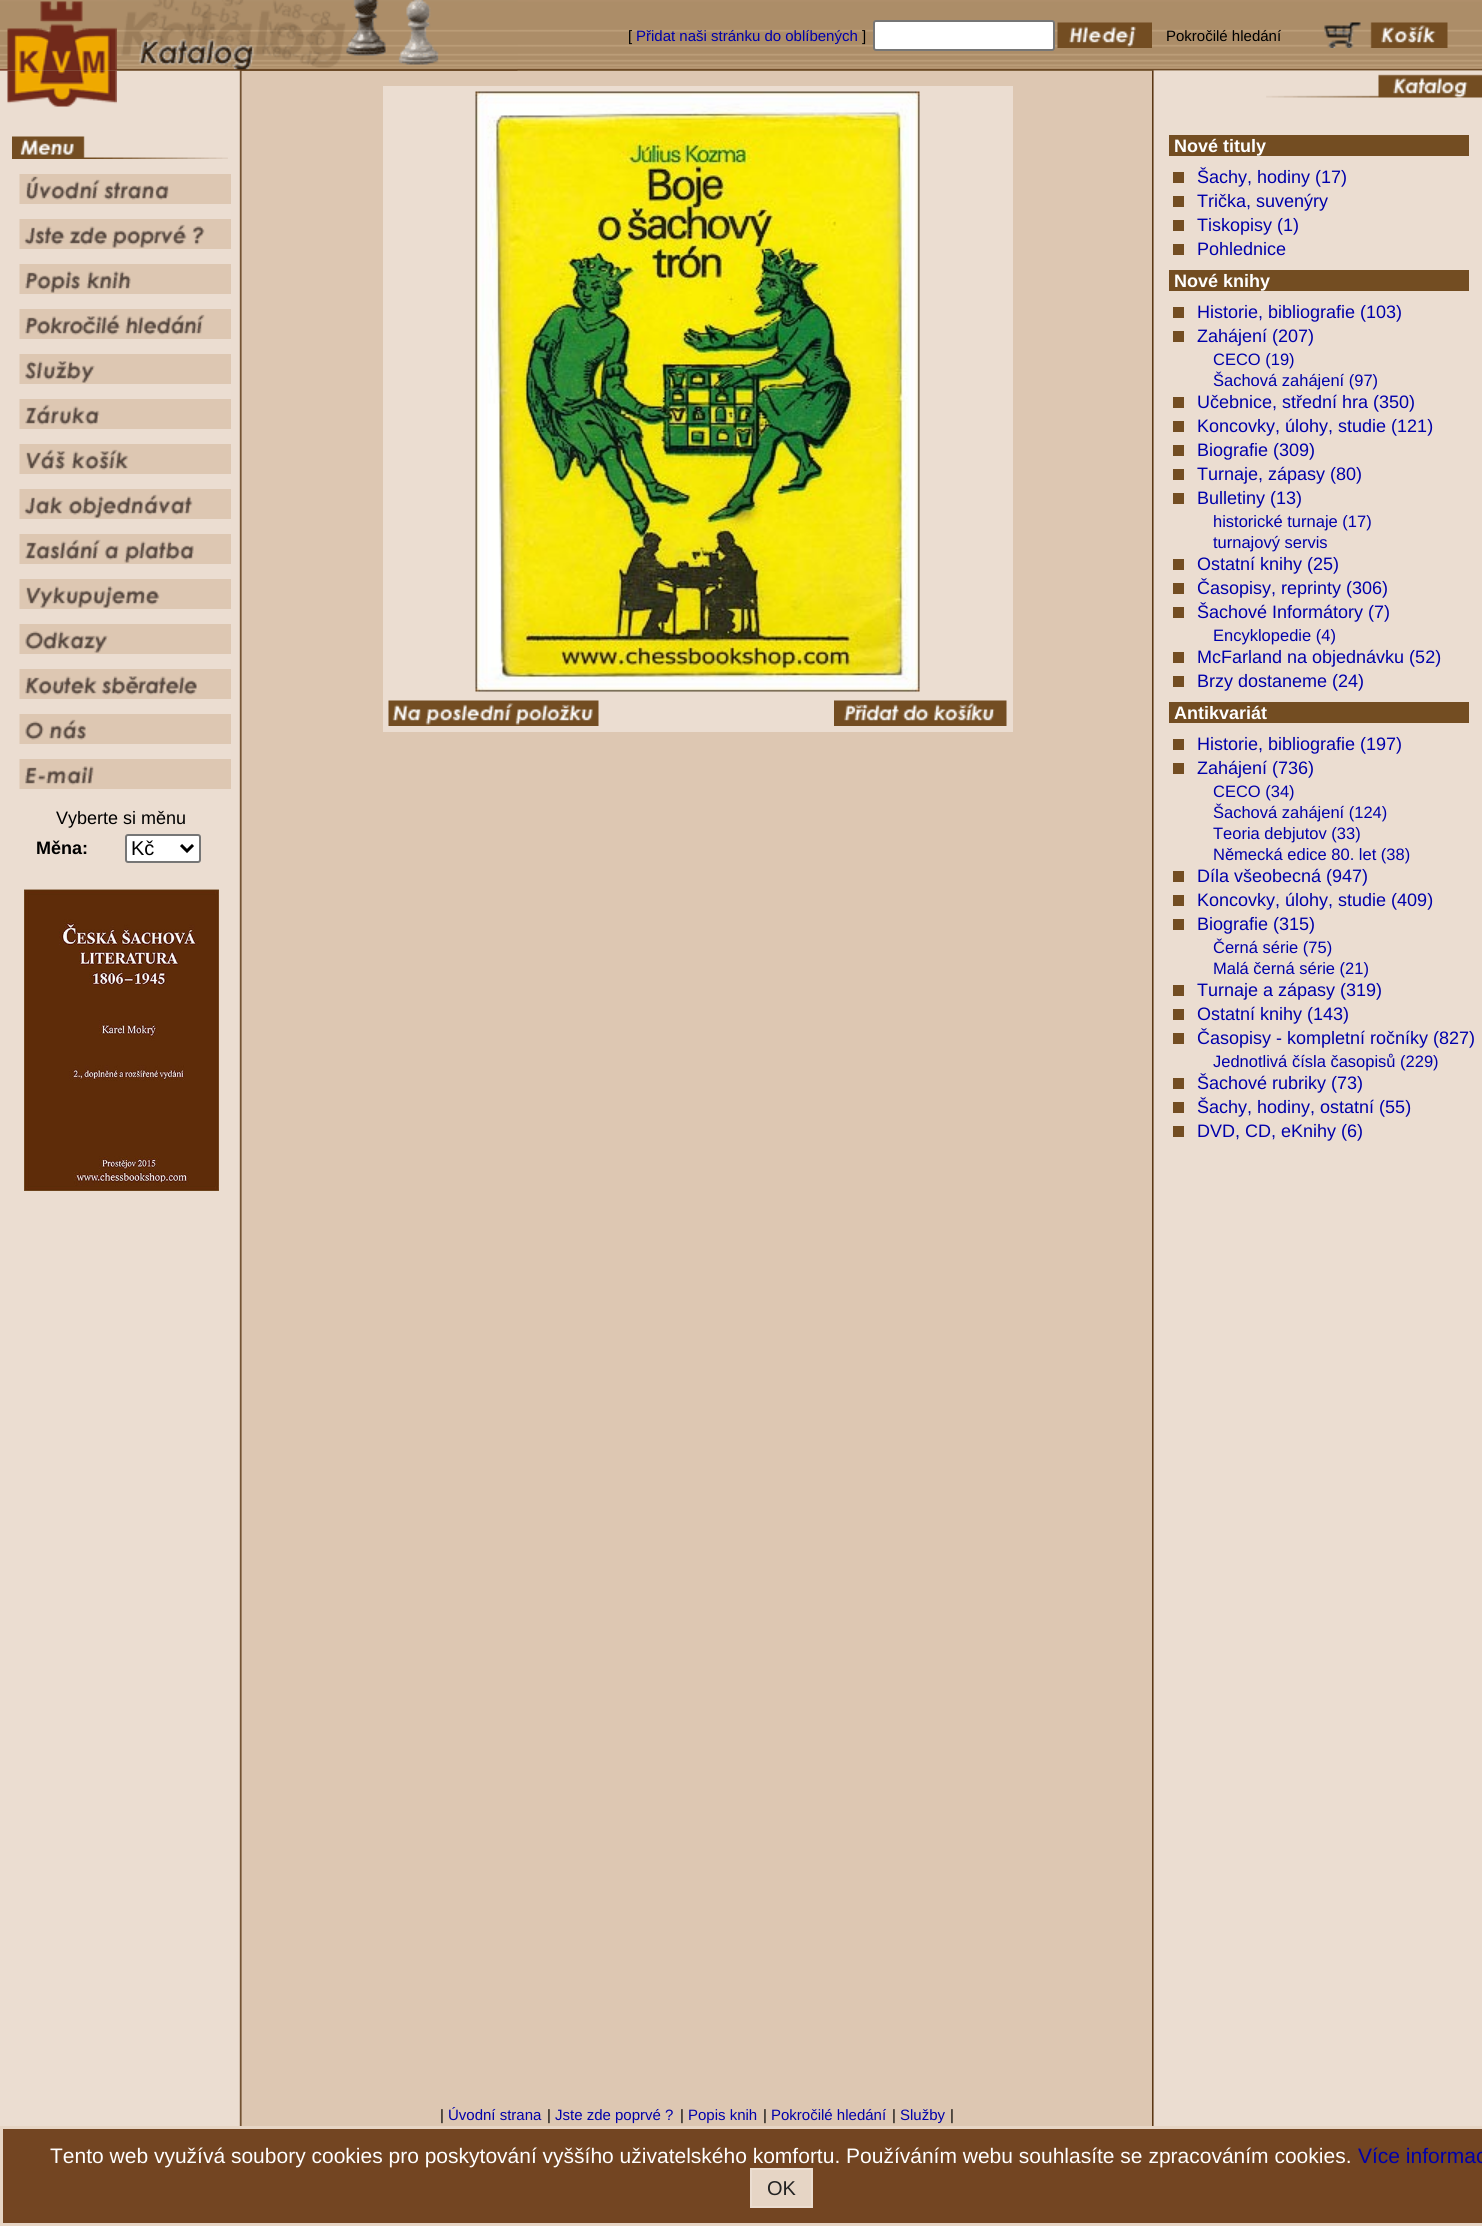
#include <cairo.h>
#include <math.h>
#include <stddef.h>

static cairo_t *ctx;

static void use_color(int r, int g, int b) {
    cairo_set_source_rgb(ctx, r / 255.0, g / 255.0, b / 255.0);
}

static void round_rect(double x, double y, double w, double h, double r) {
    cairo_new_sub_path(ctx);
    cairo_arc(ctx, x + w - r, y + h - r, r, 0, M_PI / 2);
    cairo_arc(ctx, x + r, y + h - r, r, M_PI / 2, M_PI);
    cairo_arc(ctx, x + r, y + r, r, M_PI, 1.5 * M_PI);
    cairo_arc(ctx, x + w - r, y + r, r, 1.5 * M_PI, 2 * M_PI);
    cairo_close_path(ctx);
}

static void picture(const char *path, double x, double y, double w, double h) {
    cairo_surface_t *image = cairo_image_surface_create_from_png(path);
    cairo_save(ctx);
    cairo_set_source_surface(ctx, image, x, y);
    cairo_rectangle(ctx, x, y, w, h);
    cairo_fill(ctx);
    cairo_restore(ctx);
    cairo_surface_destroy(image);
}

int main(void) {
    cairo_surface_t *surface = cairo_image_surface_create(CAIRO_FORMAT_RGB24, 1482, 2226);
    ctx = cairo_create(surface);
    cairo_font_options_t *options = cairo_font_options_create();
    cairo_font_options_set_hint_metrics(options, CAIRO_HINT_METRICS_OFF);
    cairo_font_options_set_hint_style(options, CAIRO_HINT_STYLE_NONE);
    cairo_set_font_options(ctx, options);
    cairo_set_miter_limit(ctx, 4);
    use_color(221, 199, 178);
    cairo_paint(ctx);
    use_color(165, 143, 107);
    cairo_rectangle(ctx, 0, 70, 1482, 1);
    cairo_fill(ctx);
    picture("img1.png", 0, 0, 1482, 71);
    picture("img6.png", 0, 70, 242, 1988);
    picture("img7.png", 0, 70, 117, 37);
    picture("img2.png", 0, 1, 117, 70);
    picture("img3.png", 117, 0, 401, 71);
    cairo_select_font_face(ctx, "Liberation Sans", CAIRO_FONT_SLANT_NORMAL, CAIRO_FONT_WEIGHT_NORMAL);
    cairo_set_font_size(ctx, 15);
    use_color(0, 0, 0);
    cairo_move_to(ctx, 628, 41);
    cairo_show_text(ctx, "[");
    use_color(0, 0, 170);
    cairo_move_to(ctx, 636, 41);
    cairo_show_text(ctx, "Přidat naši stránku do oblíbených");
    use_color(0, 0, 0);
    cairo_move_to(ctx, 862, 41);
    cairo_show_text(ctx, "]");
    use_color(255, 255, 255);
    round_rect(874, 21, 180, 29, 2);
    cairo_fill_preserve(ctx);
    use_color(118, 118, 118);
    cairo_stroke(ctx);
    picture("img4.png", 1057, 22, 95, 26);
    use_color(0, 0, 0);
    cairo_move_to(ctx, 1166, 41);
    cairo_show_text(ctx, "Pokročilé hledání");
    picture("img5.png", 1324, 22, 124, 26);
    picture("img8.png", 12, 136, 216, 23);
    picture("img9.png", 19, 174, 212, 30);
    picture("img10.png", 19, 219, 212, 30);
    picture("img11.png", 19, 264, 212, 30);
    picture("img12.png", 19, 309, 212, 30);
    picture("img13.png", 19, 354, 212, 30);
    picture("img14.png", 19, 399, 212, 30);
    picture("img15.png", 19, 444, 212, 30);
    picture("img16.png", 19, 489, 212, 30);
    picture("img17.png", 19, 534, 212, 30);
    picture("img18.png", 19, 579, 212, 30);
    picture("img19.png", 19, 624, 212, 30);
    picture("img20.png", 19, 669, 212, 30);
    picture("img21.png", 19, 714, 212, 30);
    picture("img22.png", 19, 759, 212, 30);
    cairo_set_font_size(ctx, 18);
    cairo_move_to(ctx, 56, 824);
    cairo_show_text(ctx, "Vyberte si měnu");
    cairo_select_font_face(ctx, "Liberation Sans", CAIRO_FONT_SLANT_NORMAL, CAIRO_FONT_WEIGHT_BOLD);
    cairo_move_to(ctx, 36, 854);
    cairo_show_text(ctx, "Měna:");
    use_color(255, 255, 255);
    round_rect(126, 835, 74, 27, 2);
    cairo_fill_preserve(ctx);
    use_color(118, 118, 118);
    cairo_stroke(ctx);
    cairo_new_path(ctx);
    cairo_move_to(ctx, 181, 845);
    cairo_line_to(ctx, 187, 851);
    cairo_line_to(ctx, 193, 845);
    use_color(0, 0, 0);
    cairo_set_line_width(ctx, 3);
    cairo_stroke(ctx);
    cairo_select_font_face(ctx, "Liberation Sans", CAIRO_FONT_SLANT_NORMAL, CAIRO_FONT_WEIGHT_NORMAL);
    cairo_set_font_size(ctx, 20);
    cairo_move_to(ctx, 131, 855);
    cairo_show_text(ctx, "Kč");
    picture("img23.png", 24, 889, 195, 302);
    use_color(235, 221, 209);
    cairo_rectangle(ctx, 383, 86, 630, 646);
    cairo_fill(ctx);
    picture("img24.png", 475, 91, 445, 601);
    picture("img25.png", 388, 700, 211, 26);
    picture("img26.png", 834, 700, 173, 26);
    picture("img27.png", 1152, 70, 330, 1988);
    picture("img28.png", 1266, 74, 216, 24);
    use_color(115, 77, 34);
    cairo_rectangle(ctx, 1169, 135, 300, 21);
    cairo_fill(ctx);
    cairo_select_font_face(ctx, "Liberation Sans", CAIRO_FONT_SLANT_NORMAL, CAIRO_FONT_WEIGHT_BOLD);
    cairo_set_font_size(ctx, 18);
    use_color(255, 255, 255);
    cairo_move_to(ctx, 1174, 152);
    cairo_show_text(ctx, "Nové tituly");
    use_color(115, 77, 34);
    cairo_rectangle(ctx, 1173, 172, 11, 11);
    cairo_fill(ctx);
    cairo_select_font_face(ctx, "Liberation Sans", CAIRO_FONT_SLANT_NORMAL, CAIRO_FONT_WEIGHT_NORMAL);
    use_color(0, 0, 170);
    cairo_move_to(ctx, 1197, 183);
    cairo_show_text(ctx, "Šachy, hodiny (17)");
    use_color(115, 77, 34);
    cairo_rectangle(ctx, 1173, 196, 11, 11);
    cairo_fill(ctx);
    use_color(0, 0, 170);
    cairo_move_to(ctx, 1197, 207);
    cairo_show_text(ctx, "Trička, suvenýry");
    use_color(115, 77, 34);
    cairo_rectangle(ctx, 1173, 220, 11, 11);
    cairo_fill(ctx);
    use_color(0, 0, 170);
    cairo_move_to(ctx, 1197, 231);
    cairo_show_text(ctx, "Tiskopisy (1)");
    use_color(115, 77, 34);
    cairo_rectangle(ctx, 1173, 244, 11, 11);
    cairo_fill(ctx);
    use_color(0, 0, 170);
    cairo_move_to(ctx, 1197, 255);
    cairo_show_text(ctx, "Pohlednice");
    use_color(115, 77, 34);
    cairo_rectangle(ctx, 1169, 270, 300, 21);
    cairo_fill(ctx);
    cairo_select_font_face(ctx, "Liberation Sans", CAIRO_FONT_SLANT_NORMAL, CAIRO_FONT_WEIGHT_BOLD);
    use_color(255, 255, 255);
    cairo_move_to(ctx, 1174, 287);
    cairo_show_text(ctx, "Nové knihy");
    use_color(115, 77, 34);
    cairo_rectangle(ctx, 1173, 307, 11, 11);
    cairo_fill(ctx);
    cairo_select_font_face(ctx, "Liberation Sans", CAIRO_FONT_SLANT_NORMAL, CAIRO_FONT_WEIGHT_NORMAL);
    use_color(0, 0, 170);
    cairo_move_to(ctx, 1197, 318);
    cairo_show_text(ctx, "Historie, bibliografie (103)");
    use_color(115, 77, 34);
    cairo_rectangle(ctx, 1173, 331, 11, 11);
    cairo_fill(ctx);
    use_color(0, 0, 170);
    cairo_move_to(ctx, 1197, 342);
    cairo_show_text(ctx, "Zahájení (207)");
    cairo_set_font_size(ctx, 16.5);
    cairo_move_to(ctx, 1213, 365);
    cairo_show_text(ctx, "CECO (19)");
    cairo_move_to(ctx, 1213, 386);
    cairo_show_text(ctx, "Šachová zahájení (97)");
    use_color(115, 77, 34);
    cairo_rectangle(ctx, 1173, 397, 11, 11);
    cairo_fill(ctx);
    cairo_set_font_size(ctx, 18);
    use_color(0, 0, 170);
    cairo_move_to(ctx, 1197, 408);
    cairo_show_text(ctx, "Učebnice, střední hra (350)");
    use_color(115, 77, 34);
    cairo_rectangle(ctx, 1173, 421, 11, 11);
    cairo_fill(ctx);
    use_color(0, 0, 170);
    cairo_move_to(ctx, 1197, 432);
    cairo_show_text(ctx, "Koncovky, úlohy, studie (121)");
    use_color(115, 77, 34);
    cairo_rectangle(ctx, 1173, 445, 11, 11);
    cairo_fill(ctx);
    use_color(0, 0, 170);
    cairo_move_to(ctx, 1197, 456);
    cairo_show_text(ctx, "Biografie (309)");
    use_color(115, 77, 34);
    cairo_rectangle(ctx, 1173, 469, 11, 11);
    cairo_fill(ctx);
    use_color(0, 0, 170);
    cairo_move_to(ctx, 1197, 480);
    cairo_show_text(ctx, "Turnaje, zápasy (80)");
    use_color(115, 77, 34);
    cairo_rectangle(ctx, 1173, 493, 11, 11);
    cairo_fill(ctx);
    use_color(0, 0, 170);
    cairo_move_to(ctx, 1197, 504);
    cairo_show_text(ctx, "Bulletiny (13)");
    cairo_set_font_size(ctx, 16.5);
    cairo_move_to(ctx, 1213, 527);
    cairo_show_text(ctx, "historické turnaje (17)");
    cairo_move_to(ctx, 1213, 548);
    cairo_show_text(ctx, "turnajový servis");
    use_color(115, 77, 34);
    cairo_rectangle(ctx, 1173, 559, 11, 11);
    cairo_fill(ctx);
    cairo_set_font_size(ctx, 18);
    use_color(0, 0, 170);
    cairo_move_to(ctx, 1197, 570);
    cairo_show_text(ctx, "Ostatní knihy (25)");
    use_color(115, 77, 34);
    cairo_rectangle(ctx, 1173, 583, 11, 11);
    cairo_fill(ctx);
    use_color(0, 0, 170);
    cairo_move_to(ctx, 1197, 594);
    cairo_show_text(ctx, "Časopisy, reprinty (306)");
    use_color(115, 77, 34);
    cairo_rectangle(ctx, 1173, 607, 11, 11);
    cairo_fill(ctx);
    use_color(0, 0, 170);
    cairo_move_to(ctx, 1197, 618);
    cairo_show_text(ctx, "Šachové Informátory (7)");
    cairo_set_font_size(ctx, 16.5);
    cairo_move_to(ctx, 1213, 641);
    cairo_show_text(ctx, "Encyklopedie (4)");
    use_color(115, 77, 34);
    cairo_rectangle(ctx, 1173, 652, 11, 11);
    cairo_fill(ctx);
    cairo_set_font_size(ctx, 18);
    use_color(0, 0, 170);
    cairo_move_to(ctx, 1197, 663);
    cairo_show_text(ctx, "McFarland na objednávku (52)");
    use_color(115, 77, 34);
    cairo_rectangle(ctx, 1173, 676, 11, 11);
    cairo_fill(ctx);
    use_color(0, 0, 170);
    cairo_move_to(ctx, 1197, 687);
    cairo_show_text(ctx, "Brzy dostaneme (24)");
    use_color(115, 77, 34);
    cairo_rectangle(ctx, 1169, 702, 300, 21);
    cairo_fill(ctx);
    cairo_select_font_face(ctx, "Liberation Sans", CAIRO_FONT_SLANT_NORMAL, CAIRO_FONT_WEIGHT_BOLD);
    use_color(255, 255, 255);
    cairo_move_to(ctx, 1174, 719);
    cairo_show_text(ctx, "Antikvariát");
    use_color(115, 77, 34);
    cairo_rectangle(ctx, 1173, 739, 11, 11);
    cairo_fill(ctx);
    cairo_select_font_face(ctx, "Liberation Sans", CAIRO_FONT_SLANT_NORMAL, CAIRO_FONT_WEIGHT_NORMAL);
    use_color(0, 0, 170);
    cairo_move_to(ctx, 1197, 750);
    cairo_show_text(ctx, "Historie, bibliografie (197)");
    use_color(115, 77, 34);
    cairo_rectangle(ctx, 1173, 763, 11, 11);
    cairo_fill(ctx);
    use_color(0, 0, 170);
    cairo_move_to(ctx, 1197, 774);
    cairo_show_text(ctx, "Zahájení (736)");
    cairo_set_font_size(ctx, 16.5);
    cairo_move_to(ctx, 1213, 797);
    cairo_show_text(ctx, "CECO (34)");
    cairo_move_to(ctx, 1213, 818);
    cairo_show_text(ctx, "Šachová zahájení (124)");
    cairo_move_to(ctx, 1213, 839);
    cairo_show_text(ctx, "Teoria debjutov (33)");
    cairo_move_to(ctx, 1213, 860);
    cairo_show_text(ctx, "Německá edice 80. let (38)");
    use_color(115, 77, 34);
    cairo_rectangle(ctx, 1173, 871, 11, 11);
    cairo_fill(ctx);
    cairo_set_font_size(ctx, 18);
    use_color(0, 0, 170);
    cairo_move_to(ctx, 1197, 882);
    cairo_show_text(ctx, "Díla všeobecná (947)");
    use_color(115, 77, 34);
    cairo_rectangle(ctx, 1173, 895, 11, 11);
    cairo_fill(ctx);
    use_color(0, 0, 170);
    cairo_move_to(ctx, 1197, 906);
    cairo_show_text(ctx, "Koncovky, úlohy, studie (409)");
    use_color(115, 77, 34);
    cairo_rectangle(ctx, 1173, 919, 11, 11);
    cairo_fill(ctx);
    use_color(0, 0, 170);
    cairo_move_to(ctx, 1197, 930);
    cairo_show_text(ctx, "Biografie (315)");
    cairo_set_font_size(ctx, 16.5);
    cairo_move_to(ctx, 1213, 953);
    cairo_show_text(ctx, "Černá série (75)");
    cairo_move_to(ctx, 1213, 974);
    cairo_show_text(ctx, "Malá černá série (21)");
    use_color(115, 77, 34);
    cairo_rectangle(ctx, 1173, 985, 11, 11);
    cairo_fill(ctx);
    cairo_set_font_size(ctx, 18);
    use_color(0, 0, 170);
    cairo_move_to(ctx, 1197, 996);
    cairo_show_text(ctx, "Turnaje a zápasy (319)");
    use_color(115, 77, 34);
    cairo_rectangle(ctx, 1173, 1009, 11, 11);
    cairo_fill(ctx);
    use_color(0, 0, 170);
    cairo_move_to(ctx, 1197, 1020);
    cairo_show_text(ctx, "Ostatní knihy (143)");
    use_color(115, 77, 34);
    cairo_rectangle(ctx, 1173, 1033, 11, 11);
    cairo_fill(ctx);
    use_color(0, 0, 170);
    cairo_move_to(ctx, 1197, 1044);
    cairo_show_text(ctx, "Časopisy - kompletní ročníky (827)");
    cairo_set_font_size(ctx, 16.5);
    cairo_move_to(ctx, 1213, 1067);
    cairo_show_text(ctx, "Jednotlivá čísla časopisů (229)");
    use_color(115, 77, 34);
    cairo_rectangle(ctx, 1173, 1078, 11, 11);
    cairo_fill(ctx);
    cairo_set_font_size(ctx, 18);
    use_color(0, 0, 170);
    cairo_move_to(ctx, 1197, 1089);
    cairo_show_text(ctx, "Šachové rubriky (73)");
    use_color(115, 77, 34);
    cairo_rectangle(ctx, 1173, 1102, 11, 11);
    cairo_fill(ctx);
    use_color(0, 0, 170);
    cairo_move_to(ctx, 1197, 1113);
    cairo_show_text(ctx, "Šachy, hodiny, ostatní (55)");
    use_color(115, 77, 34);
    cairo_rectangle(ctx, 1173, 1126, 11, 11);
    cairo_fill(ctx);
    use_color(0, 0, 170);
    cairo_move_to(ctx, 1197, 1137);
    cairo_show_text(ctx, "DVD, CD, eKnihy (6)");
    picture("img29.png", 0, 2058, 242, 68);
    cairo_set_font_size(ctx, 15);
    use_color(0, 0, 0);
    cairo_move_to(ctx, 440, 2120);
    cairo_show_text(ctx, "|");
    use_color(0, 0, 170);
    cairo_move_to(ctx, 448, 2120);
    cairo_show_text(ctx, "Úvodní strana");
    use_color(0, 0, 0);
    cairo_move_to(ctx, 547, 2120);
    cairo_show_text(ctx, "|");
    use_color(0, 0, 170);
    cairo_move_to(ctx, 555, 2120);
    cairo_show_text(ctx, "Jste zde poprvé ?");
    use_color(0, 0, 0);
    cairo_move_to(ctx, 680, 2120);
    cairo_show_text(ctx, "|");
    use_color(0, 0, 170);
    cairo_move_to(ctx, 688, 2120);
    cairo_show_text(ctx, "Popis knih");
    use_color(0, 0, 0);
    cairo_move_to(ctx, 763, 2120);
    cairo_show_text(ctx, "|");
    use_color(0, 0, 170);
    cairo_move_to(ctx, 771, 2120);
    cairo_show_text(ctx, "Pokročilé hledání");
    use_color(0, 0, 0);
    cairo_move_to(ctx, 892, 2120);
    cairo_show_text(ctx, "|");
    use_color(0, 0, 170);
    cairo_move_to(ctx, 900, 2120);
    cairo_show_text(ctx, "Služby");
    use_color(0, 0, 0);
    cairo_move_to(ctx, 950, 2120);
    cairo_show_text(ctx, "|");
    picture("img30.png", 1152, 2058, 330, 68);
    use_color(115, 69, 34);
    cairo_rectangle(ctx, 1.5, 2127.5, 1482, 97);
    cairo_fill_preserve(ctx);
    use_color(230, 213, 197);
    cairo_stroke(ctx);
    cairo_set_font_size(ctx, 21);
    use_color(255, 255, 255);
    cairo_move_to(ctx, 50, 2163);
    cairo_show_text(ctx, "Tento web využívá soubory cookies pro poskytování vyššího uživatelského komfortu. Používáním webu souhlasíte se zpracováním cookies.");
    use_color(0, 0, 170);
    cairo_move_to(ctx, 1358, 2163);
    cairo_show_text(ctx, "Více informac");
    use_color(230, 213, 197);
    cairo_rectangle(ctx, 751, 2169, 61, 38);
    cairo_fill_preserve(ctx);
    use_color(235, 221, 209);
    cairo_set_line_width(ctx, 2);
    cairo_stroke(ctx);
    cairo_set_font_size(ctx, 20);
    use_color(34, 34, 34);
    cairo_move_to(ctx, 767, 2195);
    cairo_show_text(ctx, "OK");
    cairo_surface_write_to_png(surface, "result.png");
    cairo_font_options_destroy(options);
    cairo_destroy(ctx);
    cairo_surface_destroy(surface);
    return 0;
}
